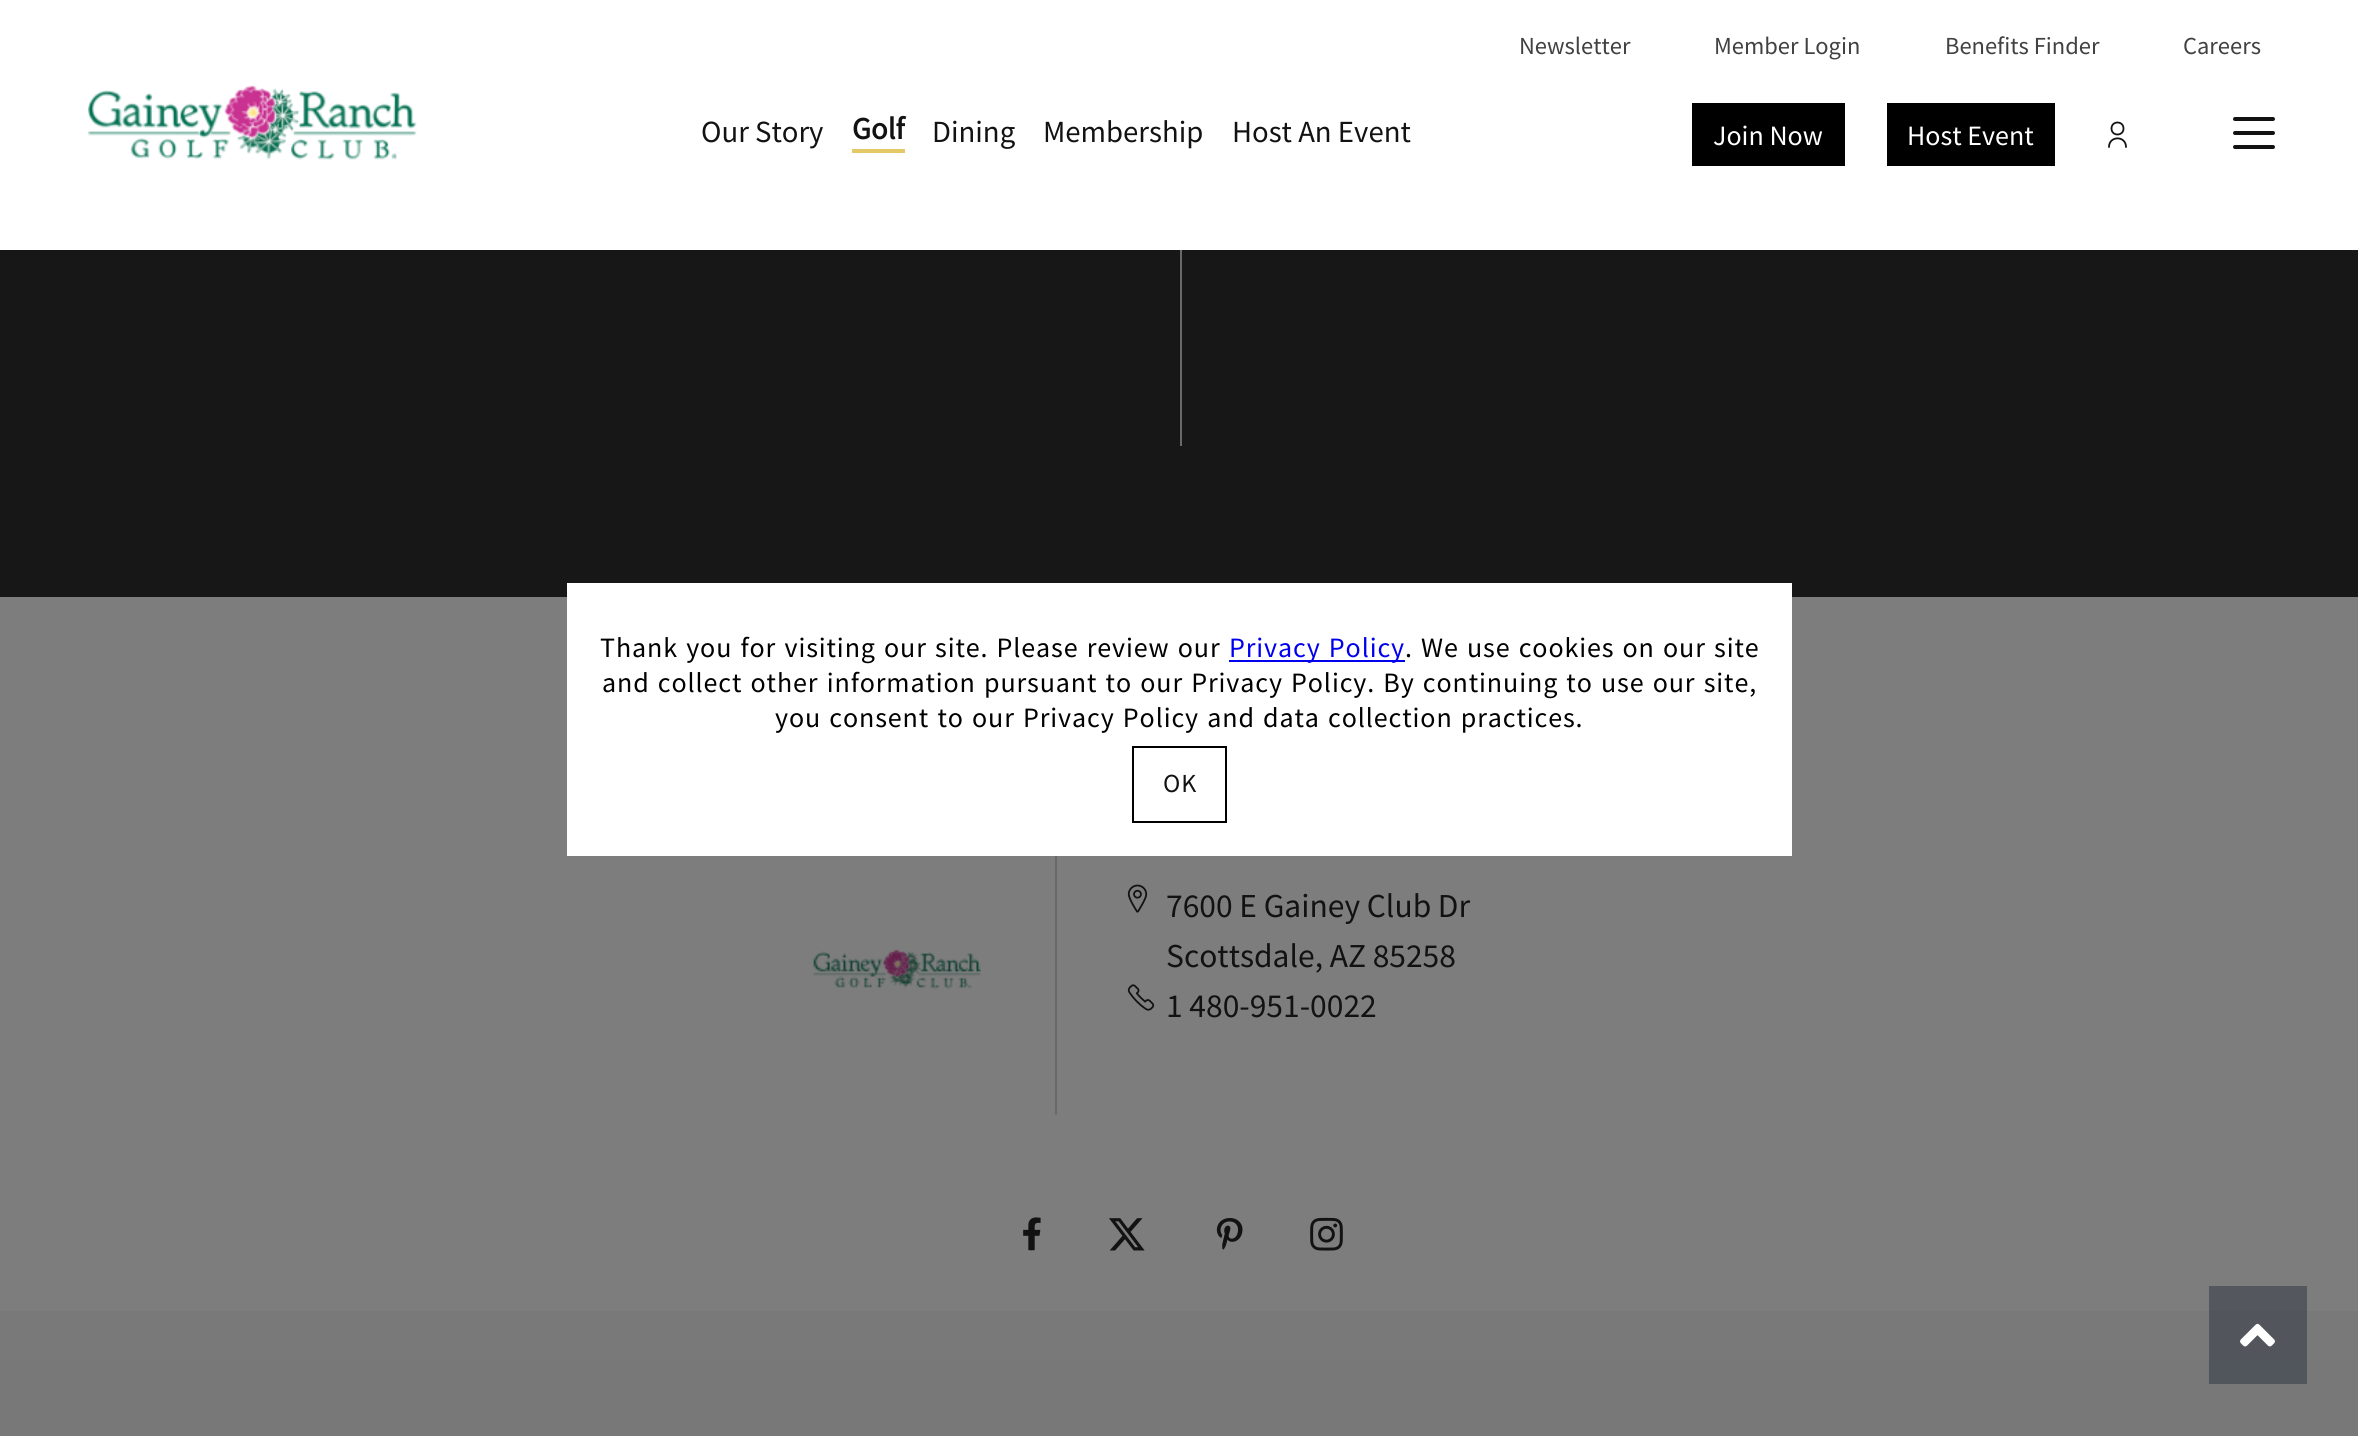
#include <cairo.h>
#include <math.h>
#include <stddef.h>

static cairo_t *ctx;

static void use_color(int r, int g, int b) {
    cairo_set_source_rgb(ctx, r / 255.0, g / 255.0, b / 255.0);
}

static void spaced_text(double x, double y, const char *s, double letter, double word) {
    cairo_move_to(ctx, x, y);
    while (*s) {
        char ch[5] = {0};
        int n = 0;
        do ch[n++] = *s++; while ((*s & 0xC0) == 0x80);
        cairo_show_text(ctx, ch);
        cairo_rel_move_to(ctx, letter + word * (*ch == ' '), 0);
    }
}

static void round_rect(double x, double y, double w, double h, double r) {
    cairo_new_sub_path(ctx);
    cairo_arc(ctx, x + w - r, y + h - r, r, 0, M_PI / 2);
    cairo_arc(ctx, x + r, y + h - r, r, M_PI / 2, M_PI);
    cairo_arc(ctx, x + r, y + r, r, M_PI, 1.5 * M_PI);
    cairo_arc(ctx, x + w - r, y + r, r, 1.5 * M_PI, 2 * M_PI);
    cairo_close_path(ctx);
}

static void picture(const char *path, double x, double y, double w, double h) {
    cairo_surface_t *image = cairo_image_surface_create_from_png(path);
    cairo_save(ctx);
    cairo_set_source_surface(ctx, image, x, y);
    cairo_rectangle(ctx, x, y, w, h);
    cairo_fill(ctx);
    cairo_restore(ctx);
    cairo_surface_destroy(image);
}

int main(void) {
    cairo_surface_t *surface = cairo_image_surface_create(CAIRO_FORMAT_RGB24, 2358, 1436);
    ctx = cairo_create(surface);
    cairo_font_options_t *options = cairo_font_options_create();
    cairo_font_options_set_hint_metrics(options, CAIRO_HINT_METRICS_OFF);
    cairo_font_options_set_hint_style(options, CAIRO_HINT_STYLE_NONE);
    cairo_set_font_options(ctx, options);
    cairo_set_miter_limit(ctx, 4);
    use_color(125, 125, 125);
    cairo_paint(ctx);
    use_color(84, 87, 94);
    cairo_rectangle(ctx, 2209, 1286, 98, 25);
    cairo_fill(ctx);
    use_color(121, 121, 121);
    cairo_rectangle(ctx, 0, 1311, 2358, 49);
    cairo_fill(ctx);
    use_color(82, 85, 92);
    cairo_rectangle(ctx, 2209, 1311, 98, 49);
    cairo_fill(ctx);
    use_color(255, 255, 255);
    cairo_rectangle(ctx, 0, 0, 2358, 250);
    cairo_fill(ctx);
    cairo_select_font_face(ctx, "Source Sans Pro", CAIRO_FONT_SLANT_NORMAL, CAIRO_FONT_WEIGHT_NORMAL);
    cairo_set_font_size(ctx, 24.5);
    use_color(65, 65, 65);
    cairo_move_to(ctx, 1519, 54);
    cairo_show_text(ctx, "Newsletter");
    cairo_move_to(ctx, 1714, 54);
    cairo_show_text(ctx, "Member Login");
    cairo_move_to(ctx, 1945, 54);
    cairo_show_text(ctx, "Benefits Finder");
    cairo_move_to(ctx, 2183, 54);
    cairo_show_text(ctx, "Careers");
    picture("img1.png", 88, 85, 329, 75);
    cairo_set_font_size(ctx, 30.75);
    use_color(18, 18, 18);
    cairo_move_to(ctx, 701, 142);
    cairo_show_text(ctx, "Our Story");
    cairo_select_font_face(ctx, "Source Sans Pro", CAIRO_FONT_SLANT_NORMAL, CAIRO_FONT_WEIGHT_BOLD);
    cairo_move_to(ctx, 852, 139);
    cairo_show_text(ctx, "Golf");
    use_color(228, 201, 102);
    cairo_rectangle(ctx, 852, 149, 53, 4);
    cairo_fill(ctx);
    cairo_select_font_face(ctx, "Source Sans Pro", CAIRO_FONT_SLANT_NORMAL, CAIRO_FONT_WEIGHT_NORMAL);
    use_color(18, 18, 18);
    cairo_move_to(ctx, 932, 142);
    cairo_show_text(ctx, "Dining");
    cairo_move_to(ctx, 1043, 142);
    cairo_show_text(ctx, "Membership");
    cairo_move_to(ctx, 1232, 142);
    cairo_show_text(ctx, "Host An Event");
    use_color(0, 0, 0);
    cairo_rectangle(ctx, 1692, 103, 153, 63);
    cairo_fill(ctx);
    cairo_set_font_size(ctx, 28);
    use_color(255, 255, 255);
    cairo_move_to(ctx, 1713, 145);
    cairo_show_text(ctx, "Join Now");
    use_color(0, 0, 0);
    cairo_rectangle(ctx, 1887, 103, 168, 63);
    cairo_fill(ctx);
    use_color(255, 255, 255);
    cairo_move_to(ctx, 1907, 145);
    cairo_show_text(ctx, "Host Event");
    cairo_new_path(ctx);
    cairo_move_to(ctx, 2109, 147);
    cairo_curve_to(ctx, 2109, 135.5, 2126, 135.5, 2126, 147);
    cairo_move_to(ctx, 2123.5, 128.5);
    cairo_curve_to(ctx, 2123.5, 136.5, 2111.5, 136.5, 2111.5, 128.5);
    cairo_curve_to(ctx, 2111.5, 120.5, 2123.5, 120.5, 2123.5, 128.5);
    cairo_close_path(ctx);
    use_color(18, 18, 18);
    cairo_set_line_width(ctx, 1.8);
    cairo_set_line_cap(ctx, CAIRO_LINE_CAP_ROUND);
    cairo_stroke(ctx);
    round_rect(2233, 117, 42, 4, 2);
    cairo_fill(ctx);
    round_rect(2233, 131, 42, 4, 2);
    cairo_fill(ctx);
    round_rect(2233, 145, 42, 4, 2);
    cairo_fill(ctx);
    use_color(23, 23, 23);
    cairo_rectangle(ctx, 0, 250, 2358, 347);
    cairo_fill(ctx);
    use_color(105, 105, 105);
    cairo_rectangle(ctx, 1180, 250, 2, 196);
    cairo_fill(ctx);
    use_color(255, 255, 255);
    cairo_rectangle(ctx, 567, 583, 1225, 273);
    cairo_fill(ctx);
    use_color(0, 0, 0);
    spaced_text(600, 657, "Thank you for visiting our site. Please review our", 0.88, 1.75);
    use_color(0, 0, 238);
    cairo_rectangle(ctx, 1229, 660, 176, 2);
    cairo_fill(ctx);
    spaced_text(1229, 657, "Privacy Policy", 0.88, 1.75);
    use_color(0, 0, 0);
    spaced_text(1405, 657, ". We use cookies on our site", 0.88, 1.75);
    spaced_text(602, 692, "and collect other information pursuant to our Privacy Policy. By continuing to use our site,", 0.88, 1.75);
    spaced_text(775, 727, "you consent to our Privacy Policy and data collection practices.", 0.88, 1.75);
    cairo_rectangle(ctx, 1133, 747, 93, 75);
    cairo_set_line_width(ctx, 2);
    cairo_set_line_cap(ctx, CAIRO_LINE_CAP_BUTT);
    cairo_stroke(ctx);
    cairo_set_font_size(ctx, 26);
    use_color(18, 18, 18);
    spaced_text(1163, 792, "OK", 1, 0);
    picture("img2.png", 813, 949, 169, 40);
    use_color(105, 105, 105);
    cairo_rectangle(ctx, 1055, 856, 2, 259);
    cairo_fill(ctx);
    picture("img3.png", 1127, 884, 21, 29);
    cairo_set_font_size(ctx, 33.5);
    use_color(18, 18, 18);
    cairo_move_to(ctx, 1166, 917);
    cairo_show_text(ctx, "7600 E Gainey Club Dr");
    cairo_move_to(ctx, 1166, 967);
    cairo_show_text(ctx, "Scottsdale, AZ 85258");
    picture("img4.png", 1127, 984, 28, 27);
    cairo_move_to(ctx, 1166, 1017);
    cairo_show_text(ctx, "1 480-951-0022");
    picture("img5.png", 1023, 1217, 18, 34);
    picture("img6.png", 1109, 1218, 36, 33);
    picture("img7.png", 1216, 1218, 27, 32);
    picture("img8.png", 1310, 1217, 33, 34);
    use_color(120, 120, 120);
    cairo_rectangle(ctx, 0, 1360, 2358, 76);
    cairo_fill(ctx);
    use_color(81, 85, 92);
    cairo_rectangle(ctx, 2209, 1360, 98, 24);
    cairo_fill(ctx);
    picture("img9.png", 2240, 1323, 35, 24);
    cairo_surface_write_to_png(surface, "result.png");
    cairo_font_options_destroy(options);
    cairo_destroy(ctx);
    cairo_surface_destroy(surface);
    return 0;
}
